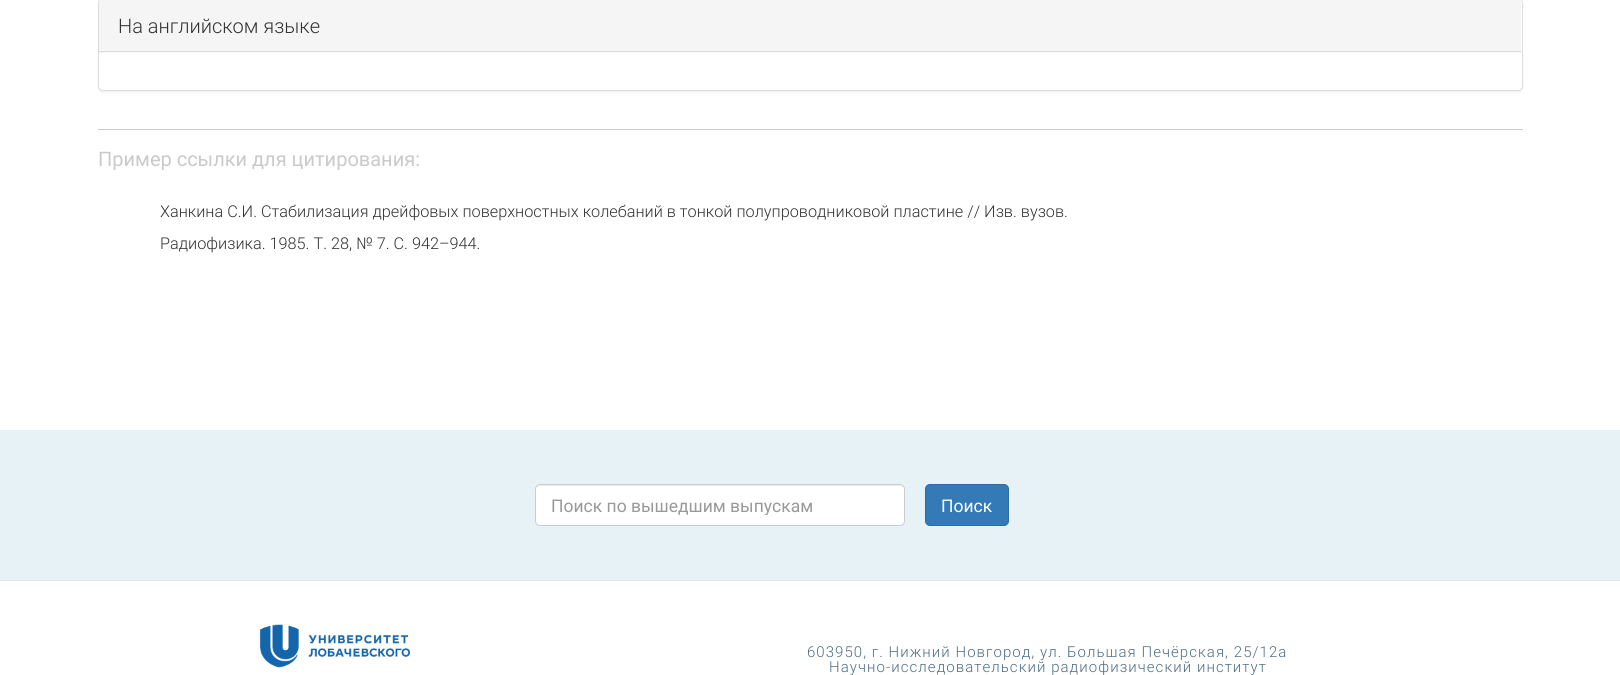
#include <cairo.h>
#include <math.h>
#include <stddef.h>

static cairo_t *ctx;

static void use_color(int r, int g, int b) {
    cairo_set_source_rgb(ctx, r / 255.0, g / 255.0, b / 255.0);
}

static void spaced_text(double x, double y, const char *s, double letter, double word) {
    cairo_move_to(ctx, x, y);
    while (*s) {
        char ch[5] = {0};
        int n = 0;
        do ch[n++] = *s++; while ((*s & 0xC0) == 0x80);
        cairo_show_text(ctx, ch);
        cairo_rel_move_to(ctx, letter + word * (*ch == ' '), 0);
    }
}

static void round_rect(double x, double y, double w, double h, double r) {
    cairo_new_sub_path(ctx);
    cairo_arc(ctx, x + w - r, y + h - r, r, 0, M_PI / 2);
    cairo_arc(ctx, x + r, y + h - r, r, M_PI / 2, M_PI);
    cairo_arc(ctx, x + r, y + r, r, M_PI, 1.5 * M_PI);
    cairo_arc(ctx, x + w - r, y + r, r, 1.5 * M_PI, 2 * M_PI);
    cairo_close_path(ctx);
}

static void shadow(double x, double y, double w, double h, double r, double blur, double alpha) {
    cairo_push_group_with_content(ctx, CAIRO_CONTENT_ALPHA);
    cairo_set_operator(ctx, CAIRO_OPERATOR_SOURCE);
    for (int i = 15; i >= -15 && fmin(w, h) + blur * i / 3 > 0; i -= 2) {
        double e = blur * i / 6;
        cairo_set_source_rgba(ctx, 0, 0, 0, alpha * erfc((i - 1) / 8.5) / 2);
        round_rect(x - e, y - e, w + 2 * e, h + 2 * e, fmax(0, fmin(r + e + blur * .6, fmin(w, h) / 2 + e)));
        cairo_fill(ctx);
    }
    cairo_pattern_t *soft = cairo_pop_group(ctx);
    cairo_mask(ctx, soft);
    cairo_pattern_destroy(soft);
}

static void picture(const char *path, double x, double y, double w, double h) {
    cairo_surface_t *image = cairo_image_surface_create_from_png(path);
    cairo_save(ctx);
    cairo_set_source_surface(ctx, image, x, y);
    cairo_rectangle(ctx, x, y, w, h);
    cairo_fill(ctx);
    cairo_restore(ctx);
    cairo_surface_destroy(image);
}

int main(void) {
    cairo_surface_t *surface = cairo_image_surface_create(CAIRO_FORMAT_RGB24, 1620, 675);
    ctx = cairo_create(surface);
    cairo_font_options_t *options = cairo_font_options_create();
    cairo_font_options_set_hint_metrics(options, CAIRO_HINT_METRICS_OFF);
    cairo_font_options_set_hint_style(options, CAIRO_HINT_STYLE_NONE);
    cairo_set_font_options(ctx, options);
    cairo_set_miter_limit(ctx, 4);
    use_color(255, 255, 255);
    cairo_paint(ctx);
    use_color(0, 0, 0);
    shadow(98, -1, 1425, 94, 5, 0.5, 0.05);
    use_color(255, 255, 255);
    round_rect(98.5, -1.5, 1424, 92, 4.5);
    cairo_fill_preserve(ctx);
    use_color(221, 221, 221);
    cairo_set_line_width(ctx, 1);
    cairo_stroke(ctx);
    use_color(245, 245, 245);
    cairo_new_path(ctx);
    cairo_move_to(ctx, 103, -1);
    cairo_line_to(ctx, 1517, -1);
    cairo_curve_to(ctx, 1519, -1, 1521, 1, 1521, 3);
    cairo_line_to(ctx, 1521, 53);
    cairo_line_to(ctx, 99, 53);
    cairo_line_to(ctx, 99, 3);
    cairo_curve_to(ctx, 99, 1, 101, -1, 103, -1);
    cairo_close_path(ctx);
    cairo_fill(ctx);
    use_color(221, 221, 221);
    cairo_rectangle(ctx, 99, 51, 1422, 1);
    cairo_fill(ctx);
    cairo_select_font_face(ctx, "Roboto Light", CAIRO_FONT_SLANT_NORMAL, CAIRO_FONT_WEIGHT_NORMAL);
    cairo_set_font_size(ctx, 20);
    use_color(51, 51, 51);
    cairo_move_to(ctx, 118, 33);
    cairo_show_text(ctx, "На английском языке");
    use_color(202, 202, 202);
    cairo_rectangle(ctx, 98, 129, 1425, 1);
    cairo_fill(ctx);
    cairo_select_font_face(ctx, "Roboto", CAIRO_FONT_SLANT_NORMAL, CAIRO_FONT_WEIGHT_NORMAL);
    cairo_move_to(ctx, 98, 166);
    cairo_show_text(ctx, "Пример ссылки для цитирования:");
    cairo_select_font_face(ctx, "Roboto Light", CAIRO_FONT_SLANT_NORMAL, CAIRO_FONT_WEIGHT_NORMAL);
    cairo_set_font_size(ctx, 16.25);
    use_color(51, 51, 51);
    cairo_move_to(ctx, 160, 217);
    cairo_show_text(ctx, "Ханкина С.И. Стабилизация дрейфовых поверхностных колебаний в тонкой полупроводниковой пластине // Изв. вузов.");
    cairo_move_to(ctx, 160, 249);
    cairo_show_text(ctx, "Радиофизика. 1985. Т. 28, № 7. C. 942–944.");
    use_color(231, 242, 247);
    cairo_rectangle(ctx, 0, 430, 1620, 150);
    cairo_fill(ctx);
    use_color(255, 255, 255);
    round_rect(535, 484, 370, 42, 5);
    cairo_fill(ctx);
    use_color(236, 236, 236);
    cairo_new_path(ctx);
    cairo_move_to(ctx, 540, 486);
    cairo_line_to(ctx, 900, 486);
    cairo_curve_to(ctx, 902, 486, 904, 488, 904, 490);
    cairo_curve_to(ctx, 904, 487, 903, 485, 900, 485);
    cairo_line_to(ctx, 540, 485);
    cairo_curve_to(ctx, 537, 485, 536, 487, 536, 490);
    cairo_curve_to(ctx, 536, 488, 538, 486, 540, 486);
    cairo_close_path(ctx);
    cairo_fill(ctx);
    round_rect(535.5, 484.5, 369, 41, 4.5);
    use_color(204, 204, 204);
    cairo_stroke(ctx);
    cairo_save(ctx);
    cairo_rectangle(ctx, 551, 495, 338, 20);
    cairo_clip(ctx);
    cairo_select_font_face(ctx, "Roboto", CAIRO_FONT_SLANT_NORMAL, CAIRO_FONT_WEIGHT_NORMAL);
    cairo_set_font_size(ctx, 17.5);
    use_color(153, 153, 153);
    cairo_move_to(ctx, 551, 512);
    cairo_show_text(ctx, "Поиск по вышедшим выпускам");
    cairo_restore(ctx);
    use_color(51, 122, 183);
    round_rect(925.5, 484.5, 83, 41, 4.5);
    cairo_fill_preserve(ctx);
    use_color(46, 109, 164);
    cairo_stroke(ctx);
    cairo_select_font_face(ctx, "Roboto", CAIRO_FONT_SLANT_NORMAL, CAIRO_FONT_WEIGHT_NORMAL);
    cairo_set_font_size(ctx, 17.5);
    use_color(255, 255, 255);
    cairo_move_to(ctx, 941, 512);
    cairo_show_text(ctx, "Поиск");
    use_color(229, 229, 229);
    cairo_rectangle(ctx, 0, 580, 1620, 1);
    cairo_fill(ctx);
    picture("img1.png", 260, 624, 150, 44);
    cairo_select_font_face(ctx, "Roboto Light", CAIRO_FONT_SLANT_NORMAL, CAIRO_FONT_WEIGHT_NORMAL);
    cairo_set_font_size(ctx, 15);
    use_color(78, 110, 131);
    spaced_text(807, 657, "603950, г. Нижний Новгород, ул. Большая Печёрская, 25/12а", 1.05, 0);
    spaced_text(829, 672, "Научно-исследовательский радиофизический институт", 1.05, 0);
    cairo_surface_write_to_png(surface, "result.png");
    cairo_font_options_destroy(options);
    cairo_destroy(ctx);
    cairo_surface_destroy(surface);
    return 0;
}
